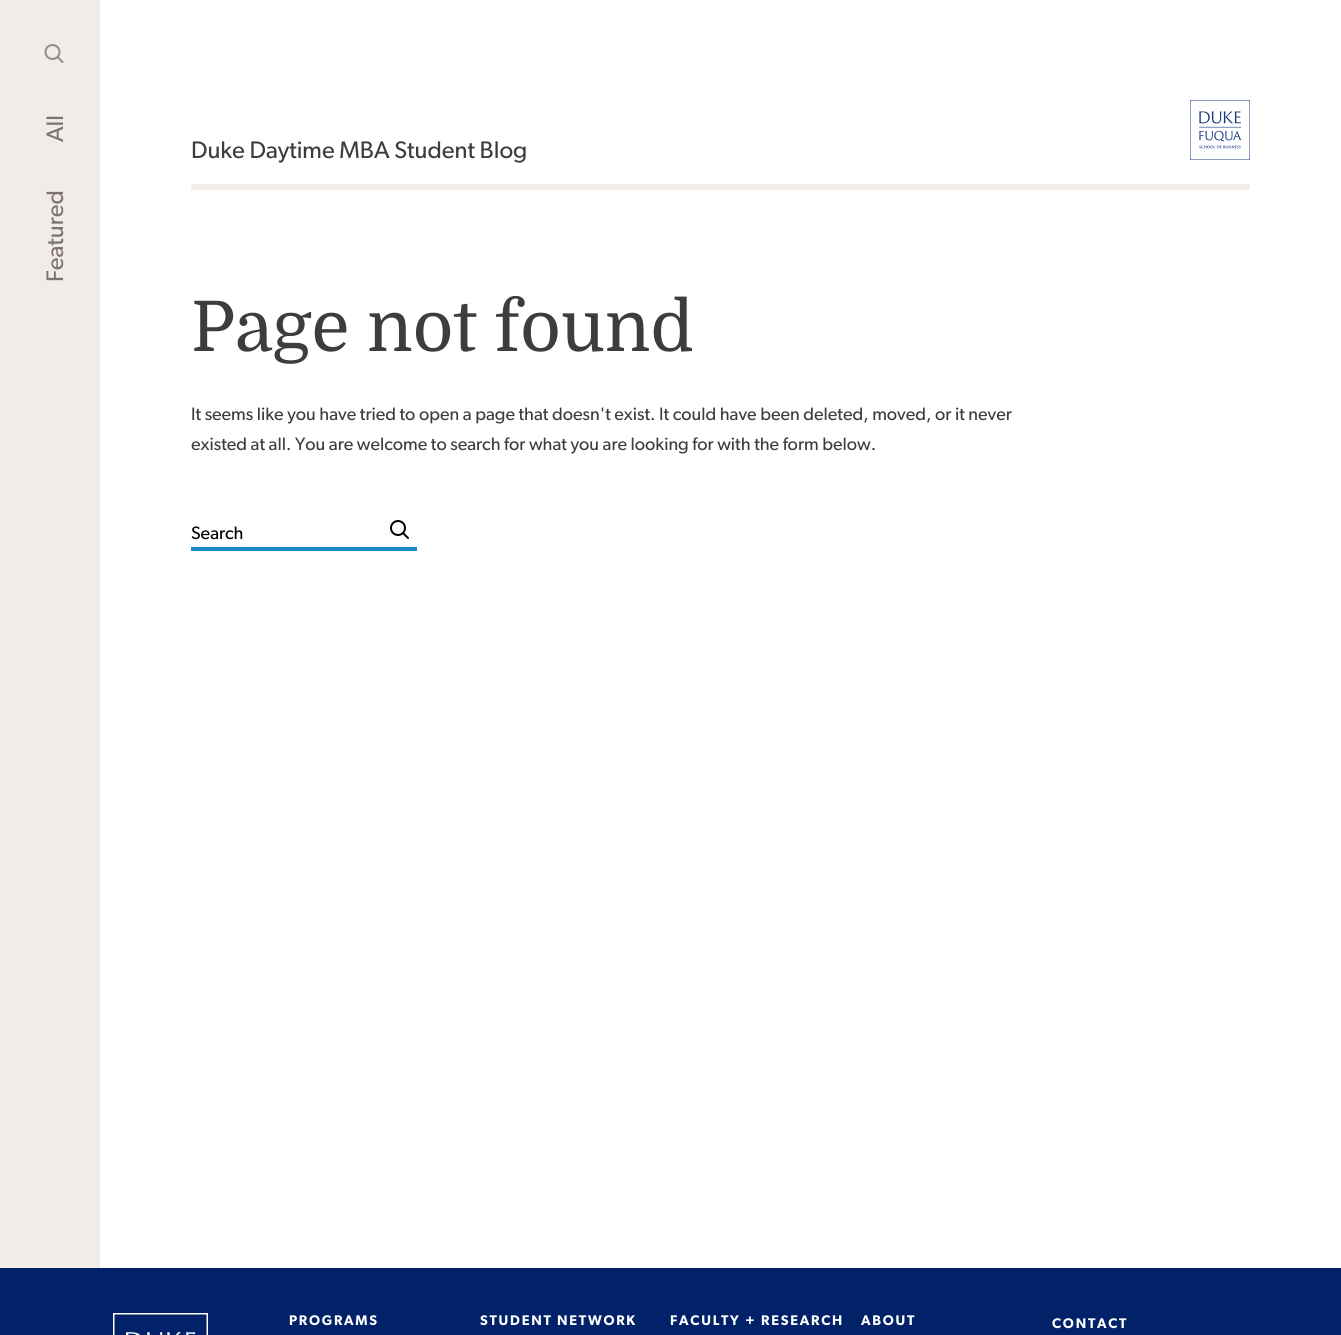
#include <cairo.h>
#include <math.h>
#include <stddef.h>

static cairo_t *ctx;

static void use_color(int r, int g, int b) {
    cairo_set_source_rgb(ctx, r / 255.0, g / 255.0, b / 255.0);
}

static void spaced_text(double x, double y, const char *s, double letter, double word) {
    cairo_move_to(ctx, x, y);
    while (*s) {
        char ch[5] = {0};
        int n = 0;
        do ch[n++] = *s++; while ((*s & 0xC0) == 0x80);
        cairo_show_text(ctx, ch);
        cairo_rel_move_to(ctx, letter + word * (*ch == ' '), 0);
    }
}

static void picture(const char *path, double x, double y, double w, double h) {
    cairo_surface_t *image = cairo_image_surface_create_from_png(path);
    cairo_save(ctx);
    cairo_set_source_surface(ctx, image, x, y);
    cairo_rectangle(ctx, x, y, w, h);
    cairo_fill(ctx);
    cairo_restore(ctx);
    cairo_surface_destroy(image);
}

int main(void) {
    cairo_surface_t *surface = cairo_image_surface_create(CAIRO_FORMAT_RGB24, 1341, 1335);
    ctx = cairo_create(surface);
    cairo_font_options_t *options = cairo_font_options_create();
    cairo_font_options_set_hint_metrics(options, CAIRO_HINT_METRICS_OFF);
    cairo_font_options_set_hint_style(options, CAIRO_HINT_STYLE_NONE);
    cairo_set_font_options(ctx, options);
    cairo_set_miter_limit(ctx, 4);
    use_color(255, 255, 255);
    cairo_paint(ctx);
    use_color(239, 236, 234);
    cairo_rectangle(ctx, 0, 0, 100, 1268);
    cairo_fill(ctx);
    cairo_arc(ctx, 52.5, 52, 7, 0, 2 * M_PI);
    use_color(152, 139, 131);
    cairo_stroke(ctx);
    cairo_new_path(ctx);
    cairo_move_to(ctx, 57.5, 57);
    cairo_line_to(ctx, 62.5, 62);
    cairo_set_line_cap(ctx, CAIRO_LINE_CAP_ROUND);
    cairo_stroke(ctx);
    cairo_select_font_face(ctx, "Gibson", CAIRO_FONT_SLANT_NORMAL, CAIRO_FONT_WEIGHT_NORMAL);
    cairo_set_font_size(ctx, 24);
    use_color(128, 115, 107);
    cairo_save(ctx);
    cairo_translate(ctx, 63, 142);
    cairo_rotate(ctx, -90 * M_PI / 180);
    cairo_move_to(ctx, 0, 0);
    cairo_show_text(ctx, "All");
    cairo_restore(ctx);
    cairo_save(ctx);
    cairo_translate(ctx, 63, 282);
    cairo_rotate(ctx, -90 * M_PI / 180);
    cairo_move_to(ctx, 0, 0);
    cairo_show_text(ctx, "Featured");
    cairo_restore(ctx);
    use_color(241, 238, 235);
    cairo_rectangle(ctx, 191, 184, 1059, 6);
    cairo_fill(ctx);
    use_color(61, 61, 61);
    cairo_move_to(ctx, 191, 158);
    cairo_show_text(ctx, "Duke Daytime MBA Student Blog");
    picture("img1.png", 1190, 100, 60, 60);
    cairo_select_font_face(ctx, "Domine", CAIRO_FONT_SLANT_NORMAL, CAIRO_FONT_WEIGHT_NORMAL);
    cairo_set_font_size(ctx, 69.75);
    cairo_move_to(ctx, 191, 351);
    cairo_show_text(ctx, "Page not found");
    cairo_select_font_face(ctx, "Gibson", CAIRO_FONT_SLANT_NORMAL, CAIRO_FONT_WEIGHT_NORMAL);
    cairo_set_font_size(ctx, 18);
    cairo_move_to(ctx, 191, 420);
    cairo_show_text(ctx, "It seems like you have tried to open a page that doesn't exist. It could have been deleted, moved, or it never");
    cairo_move_to(ctx, 191, 450);
    cairo_show_text(ctx, "existed at all. You are welcome to search for what you are looking for with the form below.");
    use_color(25, 138, 200);
    cairo_rectangle(ctx, 191, 547, 226, 4);
    cairo_fill(ctx);
    use_color(0, 0, 0);
    cairo_move_to(ctx, 191, 539);
    cairo_show_text(ctx, "Search");
    cairo_new_path(ctx);
    cairo_arc(ctx, 398, 528, 7, 0, 2 * M_PI);
    cairo_set_line_cap(ctx, CAIRO_LINE_CAP_BUTT);
    cairo_stroke(ctx);
    cairo_new_path(ctx);
    cairo_move_to(ctx, 403, 533);
    cairo_line_to(ctx, 408, 538);
    cairo_set_line_cap(ctx, CAIRO_LINE_CAP_ROUND);
    cairo_stroke(ctx);
    use_color(1, 33, 105);
    cairo_rectangle(ctx, 0, 1268, 1341, 67);
    cairo_fill(ctx);
    picture("img2.png", 113, 1313, 95, 22);
    cairo_select_font_face(ctx, "Gibson SemiBold", CAIRO_FONT_SLANT_NORMAL, CAIRO_FONT_WEIGHT_NORMAL);
    cairo_set_font_size(ctx, 14);
    use_color(255, 255, 255);
    spaced_text(289, 1325, "PROGRAMS", 1.75, 0);
    spaced_text(480, 1325, "STUDENT NETWORK", 1.75, 0);
    spaced_text(670, 1325, "FACULTY + RESEARCH", 1.75, 0);
    spaced_text(861, 1325, "ABOUT", 1.75, 0);
    spaced_text(1052, 1328, "CONTACT", 1.75, 0);
    cairo_surface_write_to_png(surface, "result.png");
    cairo_font_options_destroy(options);
    cairo_destroy(ctx);
    cairo_surface_destroy(surface);
    return 0;
}
